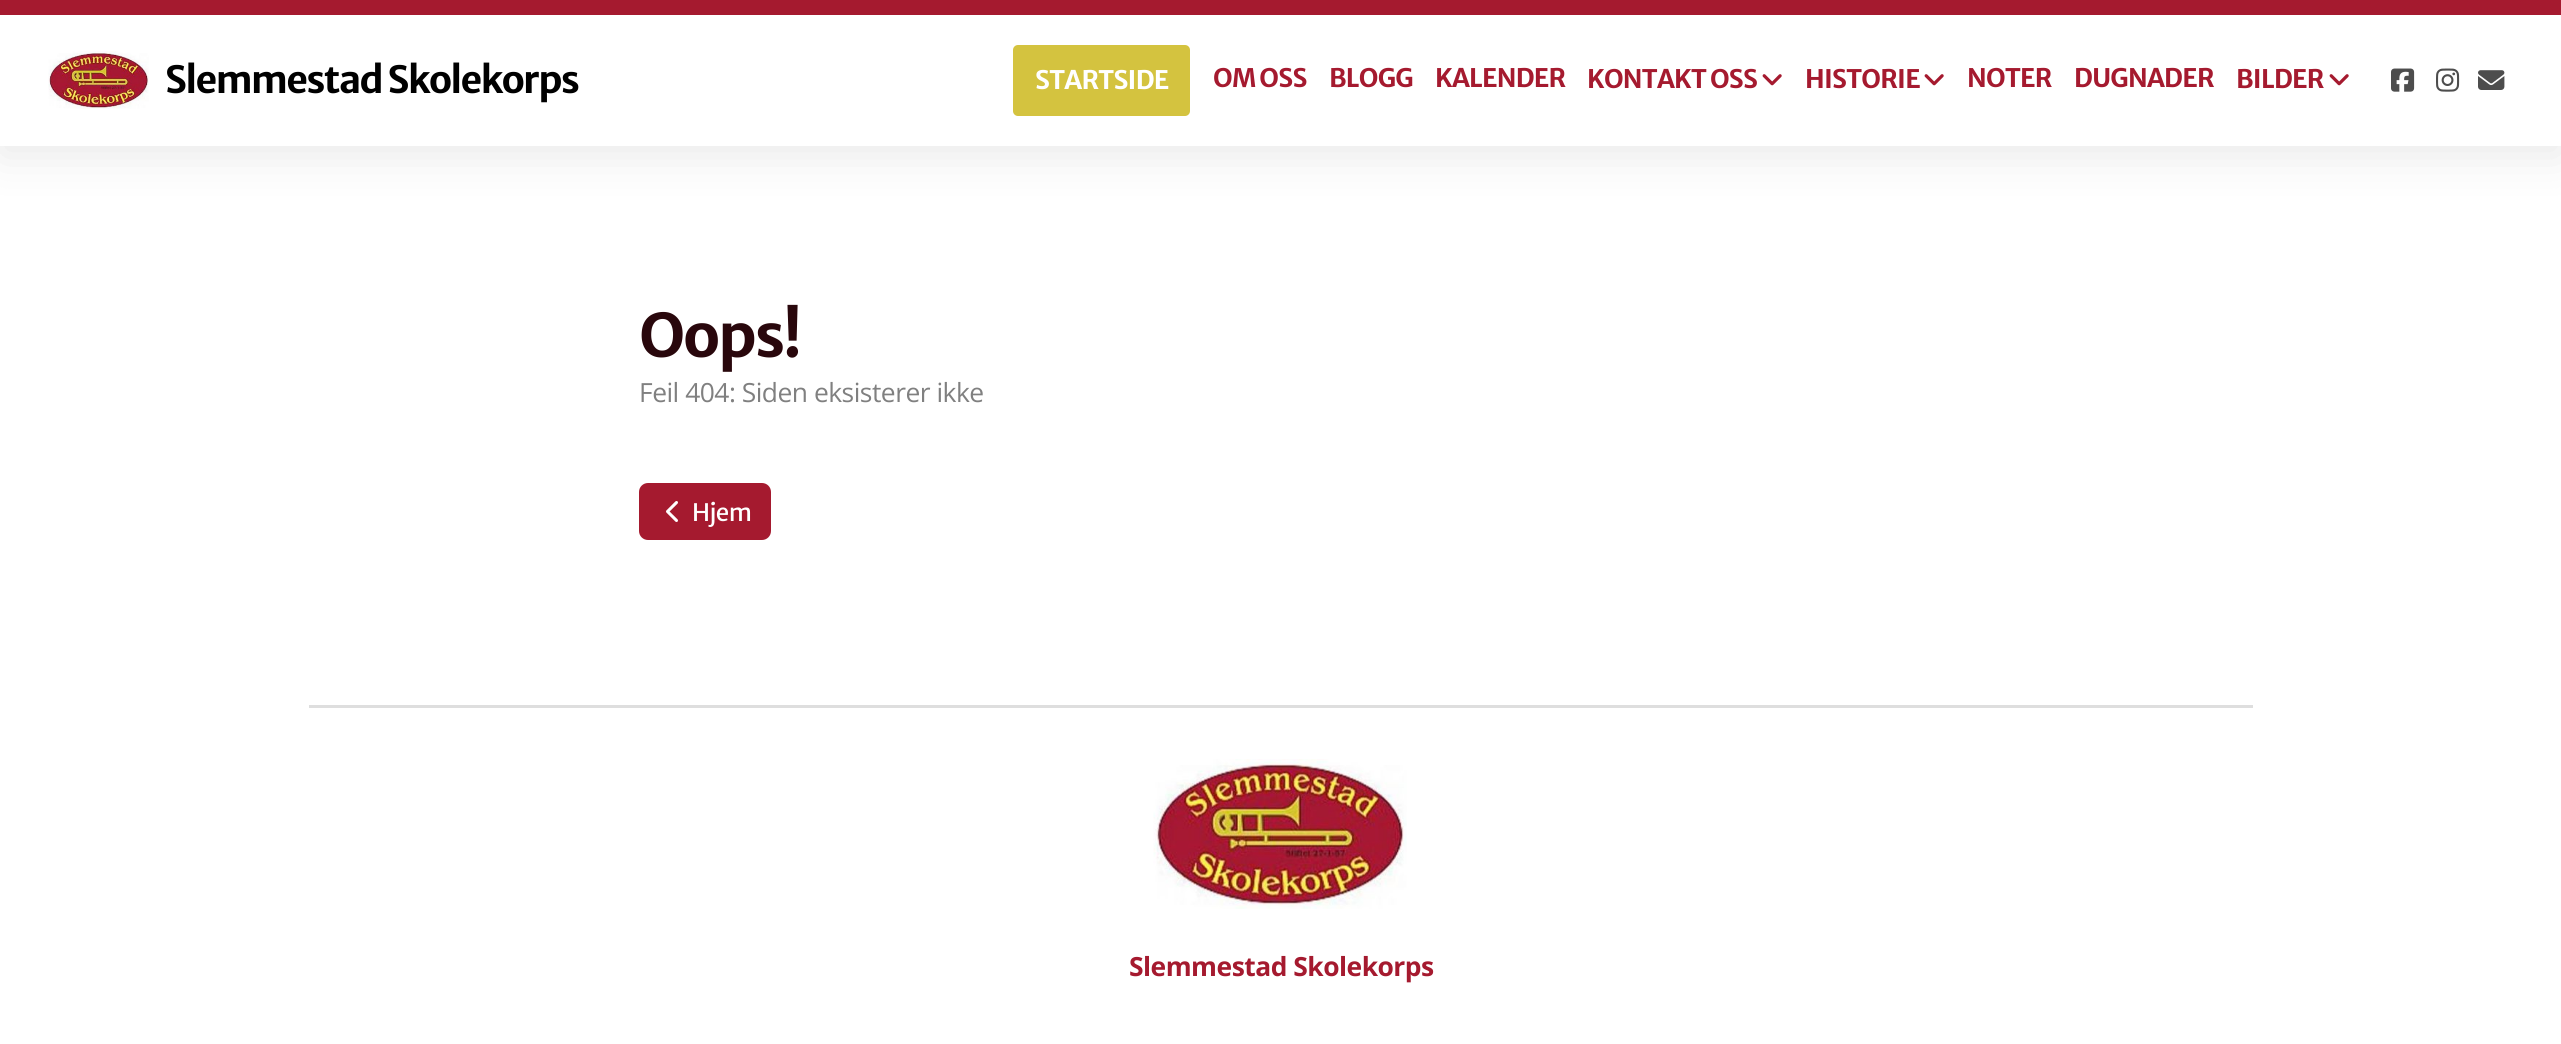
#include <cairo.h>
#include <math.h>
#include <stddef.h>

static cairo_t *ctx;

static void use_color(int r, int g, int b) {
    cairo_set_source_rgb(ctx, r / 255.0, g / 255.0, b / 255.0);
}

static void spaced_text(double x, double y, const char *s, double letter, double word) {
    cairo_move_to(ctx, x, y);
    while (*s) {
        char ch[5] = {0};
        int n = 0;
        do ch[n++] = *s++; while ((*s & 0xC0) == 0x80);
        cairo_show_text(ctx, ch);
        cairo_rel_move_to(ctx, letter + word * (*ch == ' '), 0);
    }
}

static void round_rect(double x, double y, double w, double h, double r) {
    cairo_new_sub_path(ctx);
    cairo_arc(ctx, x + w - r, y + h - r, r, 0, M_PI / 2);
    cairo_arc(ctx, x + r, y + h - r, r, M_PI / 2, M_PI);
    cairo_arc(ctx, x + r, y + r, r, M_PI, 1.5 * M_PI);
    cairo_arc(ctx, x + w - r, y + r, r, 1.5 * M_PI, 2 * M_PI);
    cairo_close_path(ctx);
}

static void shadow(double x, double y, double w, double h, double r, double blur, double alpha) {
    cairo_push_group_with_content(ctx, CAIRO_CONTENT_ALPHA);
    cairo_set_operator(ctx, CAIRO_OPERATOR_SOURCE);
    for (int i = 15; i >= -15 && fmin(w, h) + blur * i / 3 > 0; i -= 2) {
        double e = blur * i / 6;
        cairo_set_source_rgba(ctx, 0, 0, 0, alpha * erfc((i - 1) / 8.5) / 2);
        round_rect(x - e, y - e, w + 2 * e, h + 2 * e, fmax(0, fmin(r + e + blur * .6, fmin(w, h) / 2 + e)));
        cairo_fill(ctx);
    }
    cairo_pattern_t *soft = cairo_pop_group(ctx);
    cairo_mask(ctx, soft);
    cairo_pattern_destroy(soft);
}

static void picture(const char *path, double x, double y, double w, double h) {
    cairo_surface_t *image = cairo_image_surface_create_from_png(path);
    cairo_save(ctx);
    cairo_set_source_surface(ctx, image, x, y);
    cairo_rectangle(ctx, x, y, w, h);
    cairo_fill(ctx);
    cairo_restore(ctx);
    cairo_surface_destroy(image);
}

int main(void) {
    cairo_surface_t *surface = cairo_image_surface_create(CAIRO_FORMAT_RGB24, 2561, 1044);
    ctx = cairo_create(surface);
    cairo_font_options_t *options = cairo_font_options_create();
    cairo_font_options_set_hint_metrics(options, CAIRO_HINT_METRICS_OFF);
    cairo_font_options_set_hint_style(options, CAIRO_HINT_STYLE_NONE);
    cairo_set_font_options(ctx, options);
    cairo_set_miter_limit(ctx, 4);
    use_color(255, 255, 255);
    cairo_paint(ctx);
    use_color(0, 0, 0);
    shadow(0, 11, 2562, 145, 0, 22, 0.09);
    use_color(255, 255, 255);
    cairo_rectangle(ctx, 0, 15, 2561, 131);
    cairo_fill(ctx);
    use_color(165, 26, 47);
    cairo_rectangle(ctx, 0, 0, 2561, 15);
    cairo_fill(ctx);
    picture("img1.png", 48, 51, 101, 58);
    cairo_select_font_face(ctx, "Merriweather Sans", CAIRO_FONT_SLANT_NORMAL, CAIRO_FONT_WEIGHT_BOLD);
    cairo_set_font_size(ctx, 37.5);
    use_color(0, 0, 0);
    spaced_text(165, 93, "Slemmestad Skolekorps", -1.5, 0);
    use_color(212, 195, 63);
    round_rect(1013, 45, 177, 71, 5);
    cairo_fill(ctx);
    cairo_set_font_size(ctx, 25.5);
    use_color(255, 255, 255);
    spaced_text(1035, 89, "STARTSIDE", -0.75, 0);
    use_color(165, 26, 47);
    spaced_text(1213, 87, "OM OSS", -0.75, 0);
    spaced_text(1329, 87, "BLOGG", -0.75, 0);
    spaced_text(1435, 87, "KALENDER", -0.75, 0);
    spaced_text(1587, 88, "KONTAKT OSS", -0.75, 0);
    picture("img2.png", 1762, 74, 20, 12);
    spaced_text(1805, 88, "HISTORIE", -0.75, 0);
    picture("img2.png", 1924, 74, 20, 12);
    spaced_text(1967, 87, "NOTER", -0.75, 0);
    spaced_text(2074, 87, "DUGNADER", -0.75, 0);
    spaced_text(2236, 88, "BILDER", -0.75, 0);
    picture("img2.png", 2329, 74, 20, 12);
    picture("img3.png", 2391, 68, 24, 24);
    picture("img4.png", 2436, 68, 24, 24);
    picture("img5.png", 2478, 70, 27, 20);
    cairo_set_font_size(ctx, 60);
    use_color(41, 7, 12);
    spaced_text(639, 357, "Oops!", -2, 0);
    cairo_select_font_face(ctx, "Open Sans", CAIRO_FONT_SLANT_NORMAL, CAIRO_FONT_WEIGHT_NORMAL);
    cairo_set_font_size(ctx, 26.4);
    use_color(128, 128, 128);
    spaced_text(639, 402, "Feil 404: Siden eksisterer ikke", -0.5, 0);
    use_color(165, 26, 47);
    round_rect(640, 484, 130, 55, 8);
    cairo_fill_preserve(ctx);
    cairo_stroke(ctx);
    picture("img6.png", 666, 501, 12, 21);
    cairo_select_font_face(ctx, "Merriweather Sans", CAIRO_FONT_SLANT_NORMAL, CAIRO_FONT_WEIGHT_NORMAL);
    cairo_set_font_size(ctx, 24);
    use_color(255, 255, 255);
    spaced_text(692, 521, "Hjem", -0.5, 0);
    use_color(222, 222, 222);
    cairo_rectangle(ctx, 309, 705, 1944, 3);
    cairo_fill(ctx);
    picture("img7.png", 1153, 759, 254, 150);
    cairo_select_font_face(ctx, "Open Sans", CAIRO_FONT_SLANT_NORMAL, CAIRO_FONT_WEIGHT_BOLD);
    cairo_set_font_size(ctx, 26.4);
    use_color(165, 26, 47);
    spaced_text(1129, 976, "Slemmestad Skolekorps", -0.5, 0);
    cairo_surface_write_to_png(surface, "result.png");
    cairo_font_options_destroy(options);
    cairo_destroy(ctx);
    cairo_surface_destroy(surface);
    return 0;
}
